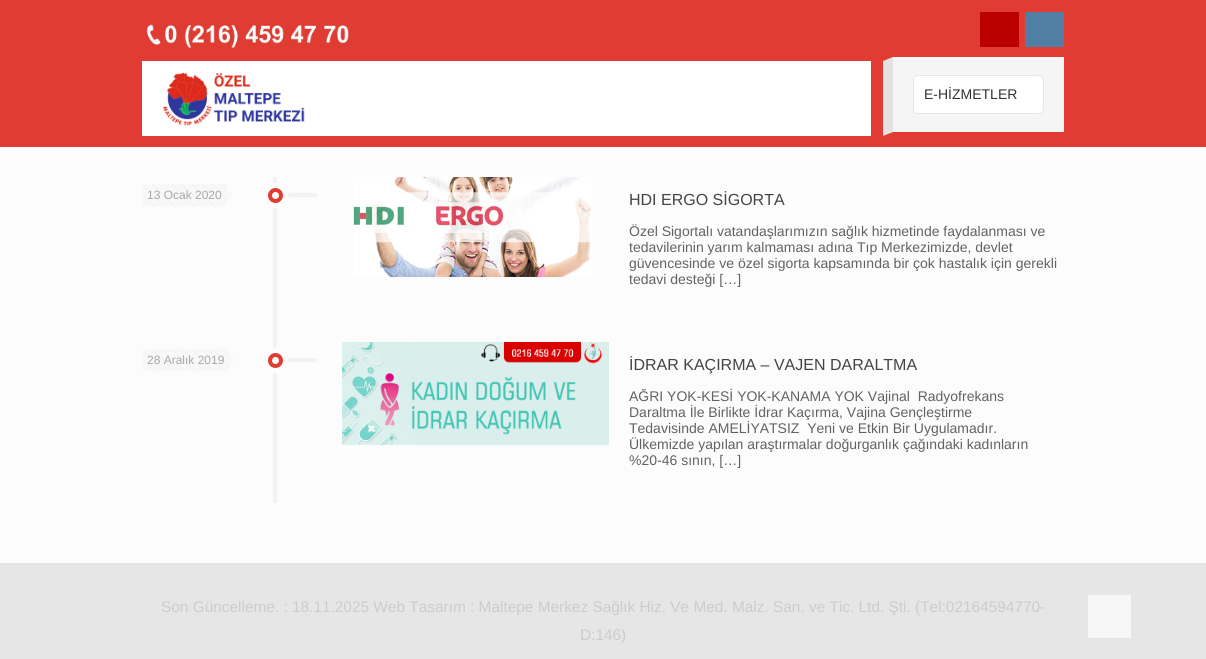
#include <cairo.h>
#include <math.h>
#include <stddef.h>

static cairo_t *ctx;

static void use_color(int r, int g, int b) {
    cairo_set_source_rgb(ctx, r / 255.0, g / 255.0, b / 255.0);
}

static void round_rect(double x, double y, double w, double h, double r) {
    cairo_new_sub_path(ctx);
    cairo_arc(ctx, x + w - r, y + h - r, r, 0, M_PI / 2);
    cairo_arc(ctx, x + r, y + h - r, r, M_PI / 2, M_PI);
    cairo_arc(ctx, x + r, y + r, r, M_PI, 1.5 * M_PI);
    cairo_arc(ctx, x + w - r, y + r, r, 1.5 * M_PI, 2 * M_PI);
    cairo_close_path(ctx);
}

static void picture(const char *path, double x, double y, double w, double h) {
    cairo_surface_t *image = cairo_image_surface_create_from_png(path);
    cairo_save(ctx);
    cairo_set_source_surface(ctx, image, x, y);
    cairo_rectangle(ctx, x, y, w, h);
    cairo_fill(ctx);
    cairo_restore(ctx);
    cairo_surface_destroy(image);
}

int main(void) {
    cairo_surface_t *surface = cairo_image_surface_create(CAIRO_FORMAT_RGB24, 1206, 659);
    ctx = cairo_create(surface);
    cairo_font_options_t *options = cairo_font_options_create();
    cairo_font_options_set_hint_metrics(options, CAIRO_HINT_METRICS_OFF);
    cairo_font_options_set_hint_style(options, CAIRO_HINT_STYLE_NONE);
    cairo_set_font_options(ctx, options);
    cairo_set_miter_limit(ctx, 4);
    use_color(252, 252, 252);
    cairo_paint(ctx);
    use_color(224, 60, 51);
    cairo_rectangle(ctx, 0, 0, 1206, 147);
    cairo_fill(ctx);
    picture("img1.png", 142, 20, 210, 30);
    use_color(187, 0, 0);
    cairo_rectangle(ctx, 980, 12, 39, 35);
    cairo_fill(ctx);
    use_color(81, 127, 164);
    cairo_rectangle(ctx, 1025, 12, 39, 35);
    cairo_fill(ctx);
    use_color(255, 255, 255);
    cairo_rectangle(ctx, 142, 61, 729, 75);
    cairo_fill(ctx);
    picture("img2.png", 162, 72, 143, 54);
    use_color(245, 245, 245);
    cairo_rectangle(ctx, 893, 57, 171, 75);
    cairo_fill(ctx);
    use_color(227, 227, 227);
    cairo_new_path(ctx);
    cairo_move_to(ctx, 883, 61);
    cairo_line_to(ctx, 893, 57);
    cairo_line_to(ctx, 893, 132);
    cairo_line_to(ctx, 883, 136);
    cairo_close_path(ctx);
    cairo_fill(ctx);
    use_color(255, 255, 255);
    round_rect(913, 75, 131, 39, 5);
    cairo_fill(ctx);
    round_rect(913.5, 75.5, 130, 38, 4.5);
    cairo_set_source_rgba(ctx, 0, 0, 0, 0.1);
    cairo_set_line_width(ctx, 1);
    cairo_stroke(ctx);
    cairo_select_font_face(ctx, "Liberation Sans", CAIRO_FONT_SLANT_NORMAL, CAIRO_FONT_WEIGHT_NORMAL);
    cairo_set_font_size(ctx, 14);
    use_color(51, 51, 51);
    cairo_move_to(ctx, 924, 99);
    cairo_show_text(ctx, "E-HİZMETLER");
    picture("img3.png", 273, 177, 44, 165);
    use_color(248, 248, 248);
    round_rect(142, 184, 85, 22, 4);
    cairo_fill(ctx);
    picture("img4.png", 142, 184, 85, 22);
    cairo_set_font_size(ctx, 12);
    use_color(168, 168, 168);
    cairo_move_to(ctx, 147, 199);
    cairo_show_text(ctx, "13 Ocak 2020");
    use_color(248, 248, 248);
    cairo_new_path(ctx);
    cairo_move_to(ctx, 227, 200);
    cairo_line_to(ctx, 227, 190);
    cairo_line_to(ctx, 232, 195);
    cairo_close_path(ctx);
    cairo_fill(ctx);
    cairo_arc(ctx, 275.5, 195.5, 5.5, 0, 2 * M_PI);
    use_color(224, 60, 49);
    cairo_set_line_width(ctx, 4);
    cairo_stroke(ctx);
    picture("img5.png", 353, 177, 239, 100);
    cairo_set_font_size(ctx, 16);
    use_color(68, 68, 68);
    cairo_move_to(ctx, 629, 205);
    cairo_show_text(ctx, "HDI ERGO SİGORTA");
    cairo_set_font_size(ctx, 14);
    use_color(98, 98, 98);
    cairo_move_to(ctx, 629, 236);
    cairo_show_text(ctx, "Özel Sigortalı vatandaşlarımızın sağlık hizmetinde faydalanması ve");
    cairo_move_to(ctx, 629, 252);
    cairo_show_text(ctx, "tedavilerinin yarım kalmaması adına Tıp Merkezimizde, devlet");
    cairo_move_to(ctx, 629, 268);
    cairo_show_text(ctx, "güvencesinde ve özel sigorta kapsamında bir çok hastalık için gerekli");
    cairo_move_to(ctx, 629, 284);
    cairo_show_text(ctx, "tedavi desteği […]");
    picture("img6.png", 273, 342, 44, 161);
    use_color(248, 248, 248);
    round_rect(142, 349, 88, 22, 4);
    cairo_fill(ctx);
    picture("img7.png", 142, 349, 88, 22);
    cairo_set_font_size(ctx, 12);
    use_color(168, 168, 168);
    cairo_move_to(ctx, 147, 364);
    cairo_show_text(ctx, "28 Aralık 2019");
    use_color(248, 248, 248);
    cairo_new_path(ctx);
    cairo_move_to(ctx, 230, 365);
    cairo_line_to(ctx, 230, 355);
    cairo_line_to(ctx, 235, 360);
    cairo_close_path(ctx);
    cairo_fill(ctx);
    cairo_arc(ctx, 275.5, 360.5, 5.5, 0, 2 * M_PI);
    use_color(224, 60, 49);
    cairo_stroke(ctx);
    picture("img8.png", 342, 342, 267, 103);
    cairo_set_font_size(ctx, 16);
    use_color(68, 68, 68);
    cairo_move_to(ctx, 629, 370);
    cairo_show_text(ctx, "İDRAR KAÇIRMA – VAJEN DARALTMA");
    cairo_set_font_size(ctx, 14);
    use_color(98, 98, 98);
    cairo_move_to(ctx, 629, 401);
    cairo_show_text(ctx, "AĞRI YOK-KESİ YOK-KANAMA YOK Vajinal  Radyofrekans");
    cairo_move_to(ctx, 629, 417);
    cairo_show_text(ctx, "Daraltma İle Birlikte İdrar Kaçırma, Vajina Gençleştirme");
    cairo_move_to(ctx, 629, 433);
    cairo_show_text(ctx, "Tedavisinde AMELİYATSIZ  Yeni ve Etkin Bir Uygulamadır.");
    cairo_move_to(ctx, 629, 449);
    cairo_show_text(ctx, "Ülkemizde yapılan araştırmalar doğurganlık çağındaki kadınların");
    cairo_move_to(ctx, 629, 465);
    cairo_show_text(ctx, "%20-46 sının, […]");
    use_color(230, 230, 230);
    cairo_rectangle(ctx, 0, 563, 1206, 96);
    cairo_fill(ctx);
    cairo_set_font_size(ctx, 15.4);
    use_color(204, 204, 204);
    cairo_move_to(ctx, 161, 612);
    cairo_show_text(ctx, "Son Güncelleme. : 18.11.2025 Web Tasarım : Maltepe Merkez Sağlık Hiz. Ve Med. Malz. San. ve Tic. Ltd. Şti. (Tel:02164594770-");
    cairo_move_to(ctx, 580, 640);
    cairo_show_text(ctx, "D:146)");
    use_color(247, 247, 247);
    cairo_rectangle(ctx, 1088, 595, 43, 43);
    cairo_fill(ctx);
    cairo_surface_write_to_png(surface, "result.png");
    cairo_font_options_destroy(options);
    cairo_destroy(ctx);
    cairo_surface_destroy(surface);
    return 0;
}
